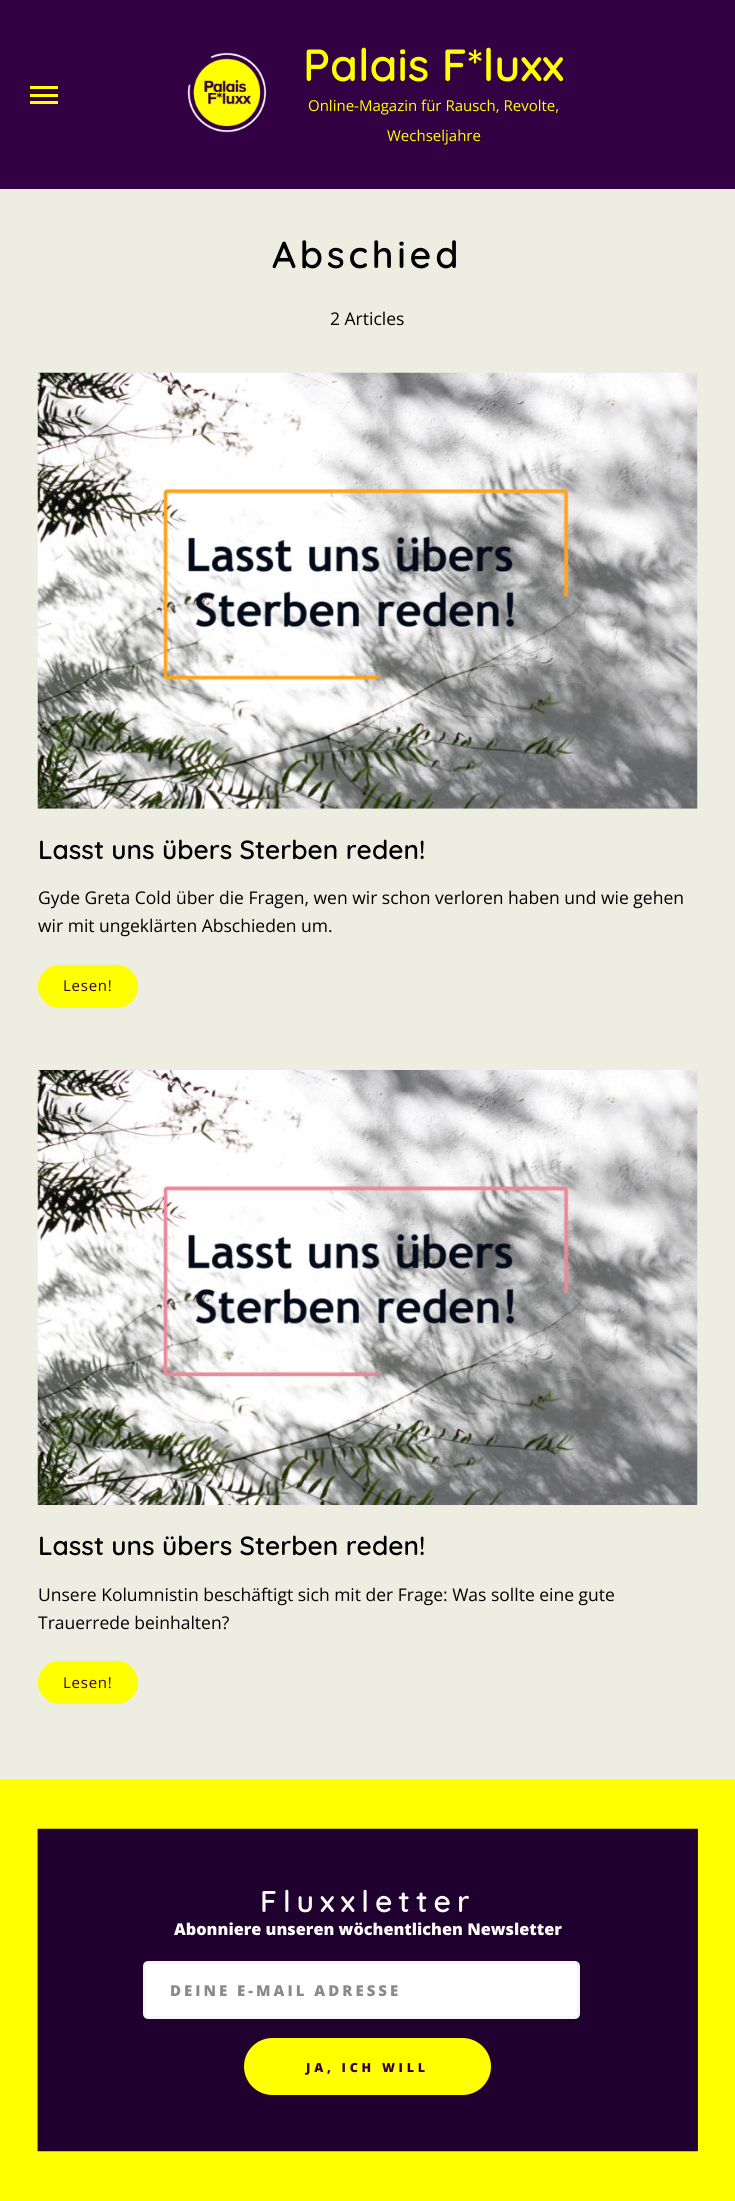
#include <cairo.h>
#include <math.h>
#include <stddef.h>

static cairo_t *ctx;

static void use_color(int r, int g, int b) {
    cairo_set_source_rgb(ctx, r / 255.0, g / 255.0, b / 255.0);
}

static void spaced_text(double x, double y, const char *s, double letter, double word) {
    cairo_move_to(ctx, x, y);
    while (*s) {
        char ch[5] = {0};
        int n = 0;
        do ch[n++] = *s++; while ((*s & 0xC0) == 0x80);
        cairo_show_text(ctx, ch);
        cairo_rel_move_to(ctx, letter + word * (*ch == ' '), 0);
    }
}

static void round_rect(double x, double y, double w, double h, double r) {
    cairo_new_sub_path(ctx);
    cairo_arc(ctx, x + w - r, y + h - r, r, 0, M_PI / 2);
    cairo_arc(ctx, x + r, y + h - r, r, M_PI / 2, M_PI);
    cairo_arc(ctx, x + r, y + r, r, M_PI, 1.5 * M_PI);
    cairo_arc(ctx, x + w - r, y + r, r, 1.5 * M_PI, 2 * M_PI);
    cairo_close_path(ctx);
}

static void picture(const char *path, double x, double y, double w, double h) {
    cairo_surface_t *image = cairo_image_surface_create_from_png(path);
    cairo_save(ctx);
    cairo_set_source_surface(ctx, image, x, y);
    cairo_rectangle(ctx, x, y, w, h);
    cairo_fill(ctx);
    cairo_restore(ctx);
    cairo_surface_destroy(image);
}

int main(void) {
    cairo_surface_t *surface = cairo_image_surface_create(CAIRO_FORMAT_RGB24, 735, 2201);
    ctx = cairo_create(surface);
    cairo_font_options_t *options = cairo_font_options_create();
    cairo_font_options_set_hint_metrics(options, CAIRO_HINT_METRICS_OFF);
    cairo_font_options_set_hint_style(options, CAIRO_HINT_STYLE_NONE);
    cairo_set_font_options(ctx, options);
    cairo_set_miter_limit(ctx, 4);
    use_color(237, 237, 225);
    cairo_paint(ctx);
    use_color(52, 0, 68);
    cairo_rectangle(ctx, 0, 0, 735, 189);
    cairo_fill(ctx);
    use_color(255, 255, 0);
    cairo_rectangle(ctx, 30, 86, 28, 3);
    cairo_fill(ctx);
    cairo_rectangle(ctx, 30, 101, 28, 3);
    cairo_fill(ctx);
    cairo_rectangle(ctx, 30, 94, 28, 3);
    cairo_fill(ctx);
    picture("img1.png", 187, 52, 80, 81);
    cairo_select_font_face(ctx, "Quicksand SemiBold", CAIRO_FONT_SLANT_NORMAL, CAIRO_FONT_WEIGHT_NORMAL);
    cairo_set_font_size(ctx, 45);
    cairo_move_to(ctx, 303, 81);
    cairo_show_text(ctx, "Palais F*luxx");
    cairo_select_font_face(ctx, "Open Sans", CAIRO_FONT_SLANT_NORMAL, CAIRO_FONT_WEIGHT_NORMAL);
    cairo_set_font_size(ctx, 15);
    cairo_move_to(ctx, 308, 111);
    cairo_show_text(ctx, "Online-Magazin für Rausch, Revolte,");
    cairo_move_to(ctx, 387, 141);
    cairo_show_text(ctx, "Wechseljahre");
    cairo_select_font_face(ctx, "Quicksand SemiBold", CAIRO_FONT_SLANT_NORMAL, CAIRO_FONT_WEIGHT_NORMAL);
    cairo_set_font_size(ctx, 37.5);
    use_color(0, 0, 0);
    spaced_text(272, 268, "Abschied", 3.75, 0);
    cairo_select_font_face(ctx, "Open Sans", CAIRO_FONT_SLANT_NORMAL, CAIRO_FONT_WEIGHT_NORMAL);
    cairo_set_font_size(ctx, 17.5);
    cairo_move_to(ctx, 330, 325);
    cairo_show_text(ctx, "2 Articles");
    picture("img2.png", 37, 372, 661, 437);
    cairo_select_font_face(ctx, "Quicksand SemiBold", CAIRO_FONT_SLANT_NORMAL, CAIRO_FONT_WEIGHT_NORMAL);
    cairo_set_font_size(ctx, 26.25);
    cairo_move_to(ctx, 38, 859);
    cairo_show_text(ctx, "Lasst uns übers Sterben reden!");
    cairo_select_font_face(ctx, "Open Sans", CAIRO_FONT_SLANT_NORMAL, CAIRO_FONT_WEIGHT_NORMAL);
    cairo_set_font_size(ctx, 17.5);
    cairo_move_to(ctx, 38, 904);
    cairo_show_text(ctx, "Gyde Greta Cold über die Fragen, wen wir schon verloren haben und wie gehen");
    cairo_move_to(ctx, 38, 932);
    cairo_show_text(ctx, "wir mit ungeklärten Abschieden um.");
    use_color(255, 255, 0);
    round_rect(38, 965, 100, 43, 21.5);
    cairo_fill(ctx);
    cairo_set_font_size(ctx, 15);
    use_color(52, 0, 68);
    spaced_text(63, 991, "Lesen!", 0.75, 0);
    picture("img3.png", 37, 1070, 661, 435);
    cairo_select_font_face(ctx, "Quicksand SemiBold", CAIRO_FONT_SLANT_NORMAL, CAIRO_FONT_WEIGHT_NORMAL);
    cairo_set_font_size(ctx, 26.25);
    use_color(0, 0, 0);
    cairo_move_to(ctx, 38, 1555);
    cairo_show_text(ctx, "Lasst uns übers Sterben reden!");
    cairo_select_font_face(ctx, "Open Sans", CAIRO_FONT_SLANT_NORMAL, CAIRO_FONT_WEIGHT_NORMAL);
    cairo_set_font_size(ctx, 17.5);
    cairo_move_to(ctx, 38, 1601);
    cairo_show_text(ctx, "Unsere Kolumnistin beschäftigt sich mit der Frage: Was sollte eine gute");
    cairo_move_to(ctx, 38, 1629);
    cairo_show_text(ctx, "Trauerrede beinhalten?");
    use_color(255, 255, 0);
    round_rect(38, 1661, 100, 43, 21.5);
    cairo_fill(ctx);
    cairo_set_font_size(ctx, 15);
    use_color(52, 0, 68);
    spaced_text(63, 1688, "Lesen!", 0.75, 0);
    use_color(255, 255, 0);
    cairo_rectangle(ctx, 0, 1779, 735, 422);
    cairo_fill(ctx);
    use_color(43, 44, 23);
    cairo_rectangle(ctx, 38, 1829, 660, 322);
    cairo_fill(ctx);
    picture("img4.png", 37, 1828, 661, 324);
    cairo_select_font_face(ctx, "Quicksand SemiBold", CAIRO_FONT_SLANT_NORMAL, CAIRO_FONT_WEIGHT_NORMAL);
    cairo_set_font_size(ctx, 30);
    use_color(255, 255, 255);
    spaced_text(260, 1912, "Fluxxletter", 6, 0);
    cairo_select_font_face(ctx, "Open Sans ExtraBold", CAIRO_FONT_SLANT_NORMAL, CAIRO_FONT_WEIGHT_NORMAL);
    cairo_set_font_size(ctx, 16.25);
    cairo_move_to(ctx, 174, 1935);
    cairo_show_text(ctx, "Abonniere unseren wöchentlichen Newsletter");
    round_rect(144.5, 1962.5, 434, 55, 3.5);
    cairo_fill_preserve(ctx);
    use_color(246, 246, 246);
    cairo_set_line_width(ctx, 3);
    cairo_stroke(ctx);
    cairo_set_font_size(ctx, 15);
    use_color(137, 138, 140);
    spaced_text(170, 1996, "DEINE E-MAIL ADRESSE", 3, 0);
    use_color(255, 255, 0);
    round_rect(244, 2038, 247, 57, 28.5);
    cairo_fill(ctx);
    cairo_set_font_size(ctx, 12.5);
    use_color(52, 0, 68);
    spaced_text(306, 2072, "JA, ICH WILL", 3.75, 0);
    cairo_surface_write_to_png(surface, "result.png");
    cairo_font_options_destroy(options);
    cairo_destroy(ctx);
    cairo_surface_destroy(surface);
    return 0;
}
